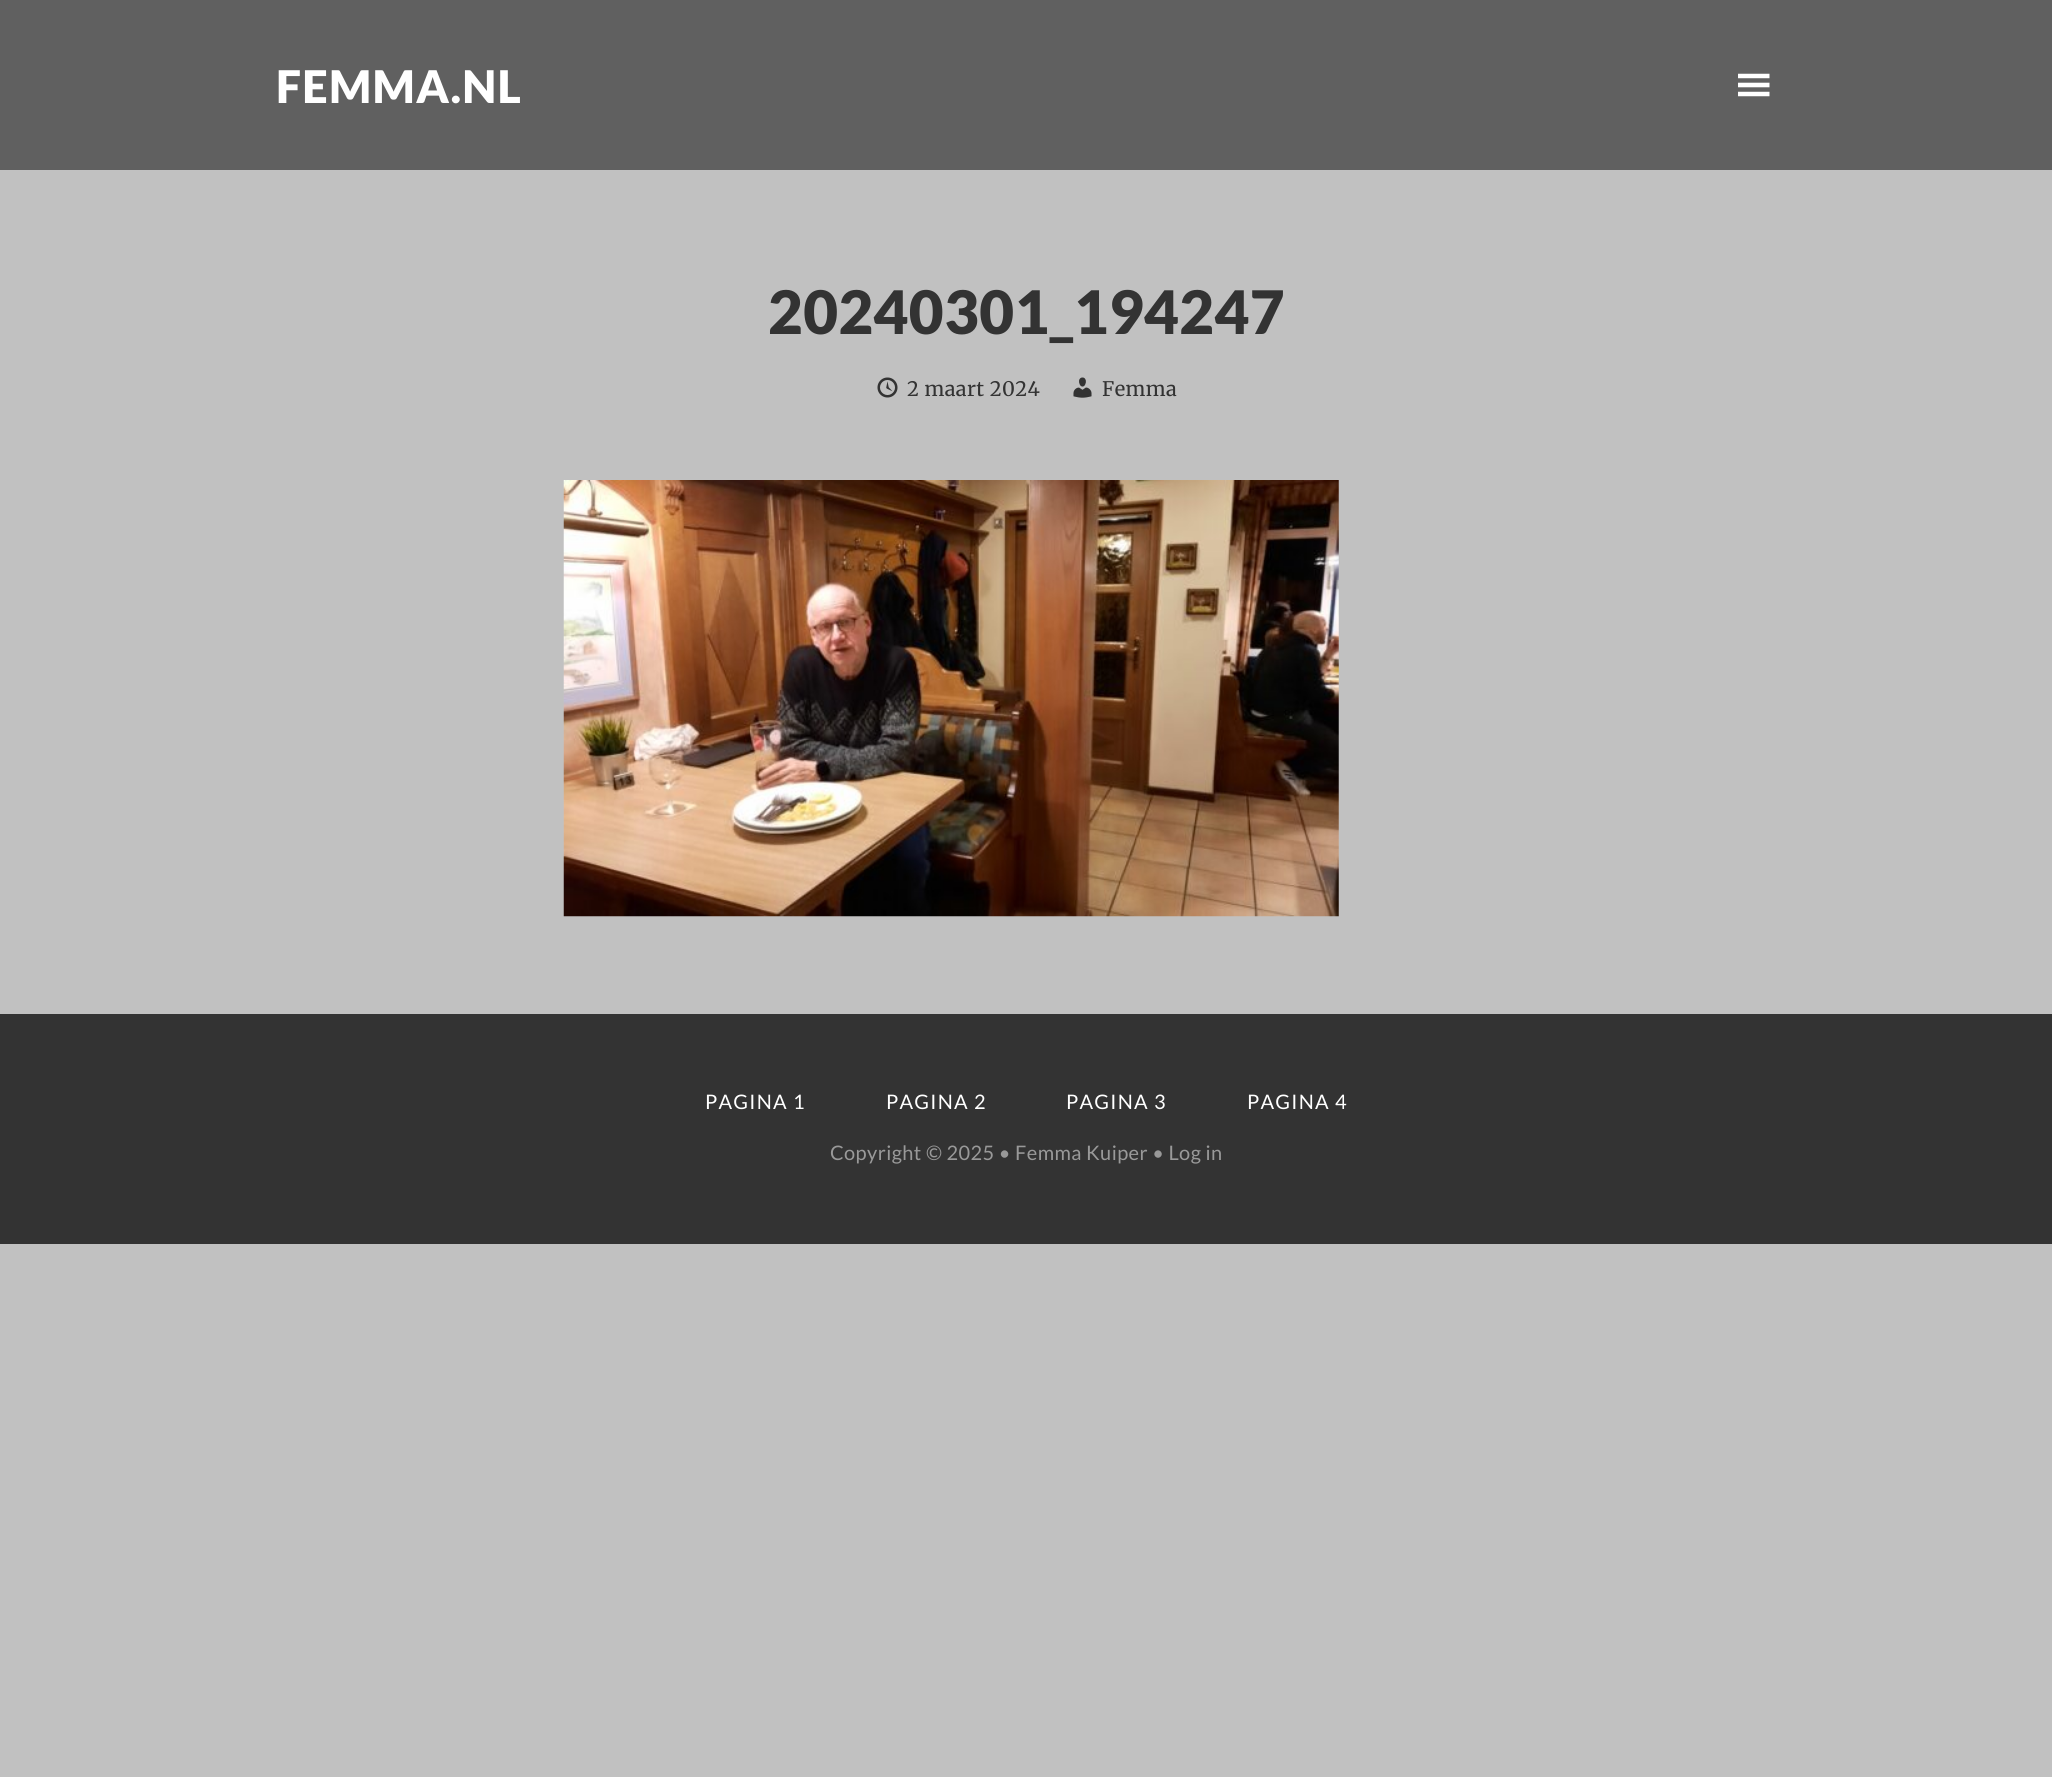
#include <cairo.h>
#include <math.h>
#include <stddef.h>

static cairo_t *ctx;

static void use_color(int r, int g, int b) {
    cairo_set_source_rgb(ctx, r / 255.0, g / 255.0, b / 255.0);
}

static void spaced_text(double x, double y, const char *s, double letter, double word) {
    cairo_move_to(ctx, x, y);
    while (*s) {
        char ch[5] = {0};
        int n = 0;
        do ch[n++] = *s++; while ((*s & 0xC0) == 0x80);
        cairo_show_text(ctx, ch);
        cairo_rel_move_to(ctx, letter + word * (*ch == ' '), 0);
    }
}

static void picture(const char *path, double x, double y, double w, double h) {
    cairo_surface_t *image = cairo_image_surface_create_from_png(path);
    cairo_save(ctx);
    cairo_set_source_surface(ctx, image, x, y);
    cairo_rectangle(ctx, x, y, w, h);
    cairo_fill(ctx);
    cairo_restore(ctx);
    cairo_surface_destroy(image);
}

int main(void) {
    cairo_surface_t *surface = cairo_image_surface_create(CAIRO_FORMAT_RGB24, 2052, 1777);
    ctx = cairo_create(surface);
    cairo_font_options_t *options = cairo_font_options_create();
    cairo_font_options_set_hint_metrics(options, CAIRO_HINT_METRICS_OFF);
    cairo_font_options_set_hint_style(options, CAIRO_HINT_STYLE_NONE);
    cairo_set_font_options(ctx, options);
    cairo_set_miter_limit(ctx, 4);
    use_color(193, 193, 193);
    cairo_paint(ctx);
    use_color(96, 96, 96);
    cairo_rectangle(ctx, 0, 0, 2052, 170);
    cairo_fill(ctx);
    cairo_select_font_face(ctx, "Lato Black", CAIRO_FONT_SLANT_NORMAL, CAIRO_FONT_WEIGHT_NORMAL);
    cairo_set_font_size(ctx, 45);
    use_color(255, 255, 255);
    spaced_text(276, 103, "FEMMA.NL", 1.25, 0);
    picture("img1.png", 1738, 73, 32, 24);
    cairo_set_font_size(ctx, 60);
    use_color(51, 51, 51);
    spaced_text(768, 334, "20240301_194247", 0.4, 0);
    picture("img2.png", 877, 377, 21, 21);
    cairo_select_font_face(ctx, "Merriweather", CAIRO_FONT_SLANT_NORMAL, CAIRO_FONT_WEIGHT_NORMAL);
    cairo_set_font_size(ctx, 20);
    spaced_text(907, 396, "2 maart 2024", 0.4, 0);
    picture("img3.png", 1073, 377, 19, 21);
    spaced_text(1102, 396, "Femma", 0.4, 0);
    picture("img4.png", 563, 480, 776, 437);
    cairo_rectangle(ctx, 0, 1014, 2052, 230);
    cairo_fill(ctx);
    cairo_select_font_face(ctx, "Lato", CAIRO_FONT_SLANT_NORMAL, CAIRO_FONT_WEIGHT_NORMAL);
    use_color(255, 255, 255);
    spaced_text(705, 1109, "PAGINA 1", 1.25, 0);
    spaced_text(886, 1109, "PAGINA 2", 1.25, 0);
    spaced_text(1066, 1109, "PAGINA 3", 1.25, 0);
    spaced_text(1247, 1109, "PAGINA 4", 1.25, 0);
    use_color(153, 153, 153);
    spaced_text(830, 1160, "Copyright © 2025 • Femma Kuiper • Log in", 0.4, 0);
    cairo_surface_write_to_png(surface, "result.png");
    cairo_font_options_destroy(options);
    cairo_destroy(ctx);
    cairo_surface_destroy(surface);
    return 0;
}
